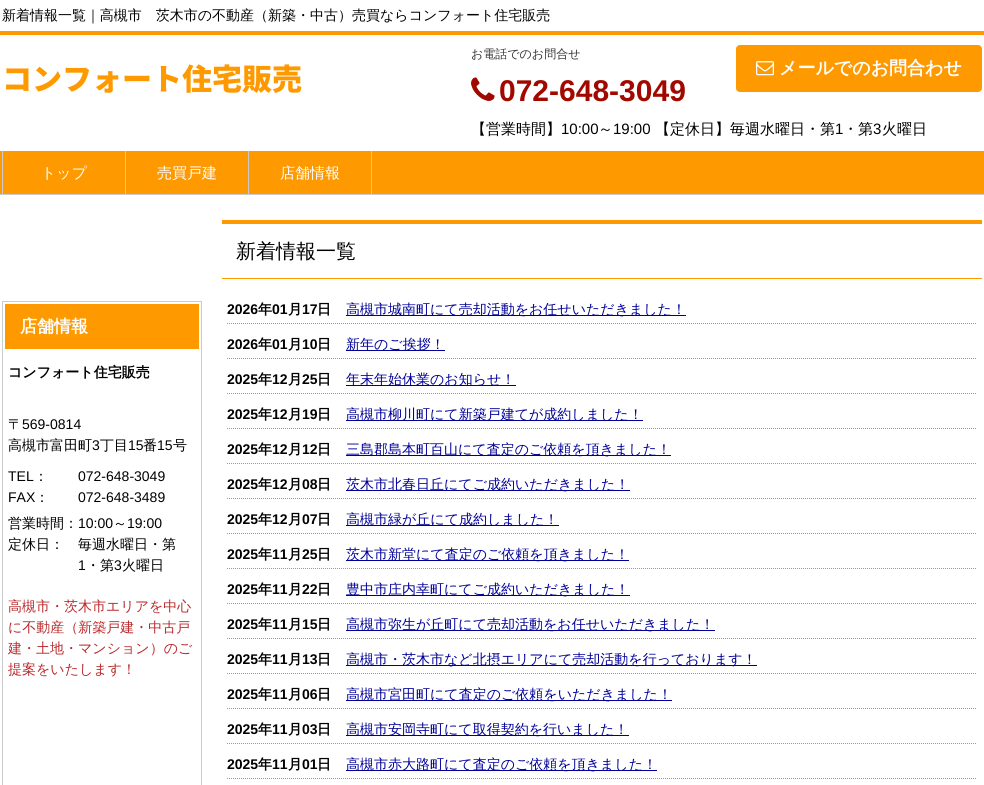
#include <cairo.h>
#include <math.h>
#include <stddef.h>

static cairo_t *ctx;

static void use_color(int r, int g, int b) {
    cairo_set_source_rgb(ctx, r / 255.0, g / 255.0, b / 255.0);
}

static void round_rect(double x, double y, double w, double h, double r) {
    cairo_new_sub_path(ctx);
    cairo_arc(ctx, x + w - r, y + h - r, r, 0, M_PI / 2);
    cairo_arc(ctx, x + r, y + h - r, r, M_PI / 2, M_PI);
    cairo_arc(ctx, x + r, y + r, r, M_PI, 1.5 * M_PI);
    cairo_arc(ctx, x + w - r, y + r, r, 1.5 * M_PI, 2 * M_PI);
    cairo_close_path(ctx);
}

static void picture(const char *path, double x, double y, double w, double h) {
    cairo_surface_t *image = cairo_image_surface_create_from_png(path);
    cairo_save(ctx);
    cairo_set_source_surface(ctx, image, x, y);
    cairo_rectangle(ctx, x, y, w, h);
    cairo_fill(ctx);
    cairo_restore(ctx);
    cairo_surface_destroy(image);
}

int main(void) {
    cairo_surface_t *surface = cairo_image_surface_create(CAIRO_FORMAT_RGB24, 984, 785);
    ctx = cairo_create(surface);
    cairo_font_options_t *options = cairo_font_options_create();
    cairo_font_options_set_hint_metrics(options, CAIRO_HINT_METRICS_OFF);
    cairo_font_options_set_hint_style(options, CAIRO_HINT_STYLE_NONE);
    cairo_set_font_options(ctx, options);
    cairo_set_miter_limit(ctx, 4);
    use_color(255, 255, 255);
    cairo_paint(ctx);
    use_color(255, 153, 0);
    cairo_rectangle(ctx, 0, 31, 984, 4);
    cairo_fill(ctx);
    cairo_select_font_face(ctx, "WenQuanYi Zen Hei Medium", CAIRO_FONT_SLANT_NORMAL, CAIRO_FONT_WEIGHT_NORMAL);
    cairo_set_font_size(ctx, 14);
    use_color(0, 0, 0);
    cairo_move_to(ctx, 2, 20);
    cairo_show_text(ctx, "新着情報一覧｜高槻市　茨木市の不動産（新築・中古）売買ならコンフォート住宅販売");
    cairo_select_font_face(ctx, "Noto Sans JP Black", CAIRO_FONT_SLANT_NORMAL, CAIRO_FONT_WEIGHT_NORMAL);
    cairo_set_font_size(ctx, 30);
    use_color(255, 153, 0);
    cairo_move_to(ctx, 2, 90);
    cairo_show_text(ctx, "コンフォート住宅販売");
    cairo_select_font_face(ctx, "WenQuanYi Zen Hei Medium", CAIRO_FONT_SLANT_NORMAL, CAIRO_FONT_WEIGHT_NORMAL);
    cairo_set_font_size(ctx, 12);
    use_color(51, 51, 51);
    cairo_move_to(ctx, 471, 58);
    cairo_show_text(ctx, "お電話でのお問合せ");
    picture("img1.png", 471, 77, 24, 24);
    cairo_select_font_face(ctx, "Liberation Sans", CAIRO_FONT_SLANT_NORMAL, CAIRO_FONT_WEIGHT_BOLD);
    cairo_set_font_size(ctx, 30);
    use_color(161, 8, 0);
    cairo_move_to(ctx, 499, 101);
    cairo_show_text(ctx, "072-648-3049");
    use_color(255, 153, 0);
    round_rect(736, 45, 246, 47, 4);
    cairo_fill(ctx);
    picture("img2.png", 756, 61, 18, 15);
    cairo_select_font_face(ctx, "WenQuanYi Zen Hei", CAIRO_FONT_SLANT_NORMAL, CAIRO_FONT_WEIGHT_BOLD);
    cairo_set_font_size(ctx, 18);
    use_color(255, 255, 255);
    cairo_move_to(ctx, 779, 74);
    cairo_show_text(ctx, "メールでのお問合わせ");
    cairo_select_font_face(ctx, "WenQuanYi Zen Hei Medium", CAIRO_FONT_SLANT_NORMAL, CAIRO_FONT_WEIGHT_NORMAL);
    cairo_set_font_size(ctx, 15);
    use_color(0, 0, 0);
    cairo_move_to(ctx, 471, 134);
    cairo_show_text(ctx, "【営業時間】");
    cairo_select_font_face(ctx, "Liberation Sans", CAIRO_FONT_SLANT_NORMAL, CAIRO_FONT_WEIGHT_NORMAL);
    cairo_move_to(ctx, 561, 134);
    cairo_show_text(ctx, "10:00");
    cairo_select_font_face(ctx, "WenQuanYi Zen Hei Medium", CAIRO_FONT_SLANT_NORMAL, CAIRO_FONT_WEIGHT_NORMAL);
    cairo_move_to(ctx, 598, 134);
    cairo_show_text(ctx, "～");
    cairo_select_font_face(ctx, "Liberation Sans", CAIRO_FONT_SLANT_NORMAL, CAIRO_FONT_WEIGHT_NORMAL);
    cairo_move_to(ctx, 613, 134);
    cairo_show_text(ctx, "19:00");
    cairo_select_font_face(ctx, "WenQuanYi Zen Hei Medium", CAIRO_FONT_SLANT_NORMAL, CAIRO_FONT_WEIGHT_NORMAL);
    cairo_move_to(ctx, 655, 134);
    cairo_show_text(ctx, "【定休日】毎週水曜日・第");
    cairo_select_font_face(ctx, "Liberation Sans", CAIRO_FONT_SLANT_NORMAL, CAIRO_FONT_WEIGHT_NORMAL);
    cairo_move_to(ctx, 835, 134);
    cairo_show_text(ctx, "1");
    cairo_select_font_face(ctx, "WenQuanYi Zen Hei Medium", CAIRO_FONT_SLANT_NORMAL, CAIRO_FONT_WEIGHT_NORMAL);
    cairo_move_to(ctx, 843, 134);
    cairo_show_text(ctx, "・第");
    cairo_select_font_face(ctx, "Liberation Sans", CAIRO_FONT_SLANT_NORMAL, CAIRO_FONT_WEIGHT_NORMAL);
    cairo_move_to(ctx, 873, 134);
    cairo_show_text(ctx, "3");
    cairo_select_font_face(ctx, "WenQuanYi Zen Hei Medium", CAIRO_FONT_SLANT_NORMAL, CAIRO_FONT_WEIGHT_NORMAL);
    cairo_move_to(ctx, 882, 134);
    cairo_show_text(ctx, "火曜日");
    use_color(255, 153, 0);
    cairo_rectangle(ctx, 0, 151, 984, 43);
    cairo_fill(ctx);
    use_color(204, 204, 204);
    cairo_rectangle(ctx, 0, 194, 984, 1);
    cairo_fill(ctx);
    cairo_rectangle(ctx, 125, 151, 1, 43);
    cairo_fill(ctx);
    cairo_rectangle(ctx, 2, 151, 1, 43);
    cairo_fill(ctx);
    use_color(255, 255, 255);
    cairo_move_to(ctx, 41, 178);
    cairo_show_text(ctx, "トップ");
    use_color(204, 204, 204);
    cairo_rectangle(ctx, 248, 151, 1, 43);
    cairo_fill(ctx);
    use_color(255, 255, 255);
    cairo_move_to(ctx, 157, 178);
    cairo_show_text(ctx, "売買戸建");
    use_color(204, 204, 204);
    cairo_rectangle(ctx, 371, 151, 1, 43);
    cairo_fill(ctx);
    use_color(255, 255, 255);
    cairo_move_to(ctx, 280, 178);
    cairo_show_text(ctx, "店舗情報");
    cairo_rectangle(ctx, 2.5, 301.5, 199, 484);
    use_color(204, 204, 204);
    cairo_set_line_width(ctx, 1);
    cairo_stroke(ctx);
    use_color(255, 153, 0);
    cairo_rectangle(ctx, 5, 304, 194, 45);
    cairo_fill(ctx);
    cairo_select_font_face(ctx, "WenQuanYi Zen Hei", CAIRO_FONT_SLANT_NORMAL, CAIRO_FONT_WEIGHT_BOLD);
    cairo_set_font_size(ctx, 17);
    use_color(255, 255, 255);
    cairo_move_to(ctx, 20, 332);
    cairo_show_text(ctx, "店舗情報");
    cairo_set_font_size(ctx, 14);
    use_color(0, 0, 0);
    cairo_move_to(ctx, 8, 377);
    cairo_show_text(ctx, "コンフォート住宅販売");
    cairo_select_font_face(ctx, "WenQuanYi Zen Hei Medium", CAIRO_FONT_SLANT_NORMAL, CAIRO_FONT_WEIGHT_NORMAL);
    cairo_move_to(ctx, 8, 429);
    cairo_show_text(ctx, "〒");
    cairo_select_font_face(ctx, "Liberation Sans", CAIRO_FONT_SLANT_NORMAL, CAIRO_FONT_WEIGHT_NORMAL);
    cairo_move_to(ctx, 22, 429);
    cairo_show_text(ctx, "569-0814");
    cairo_select_font_face(ctx, "WenQuanYi Zen Hei Medium", CAIRO_FONT_SLANT_NORMAL, CAIRO_FONT_WEIGHT_NORMAL);
    cairo_move_to(ctx, 8, 450);
    cairo_show_text(ctx, "高槻市富田町");
    cairo_select_font_face(ctx, "Liberation Sans", CAIRO_FONT_SLANT_NORMAL, CAIRO_FONT_WEIGHT_NORMAL);
    cairo_move_to(ctx, 92, 450);
    cairo_show_text(ctx, "3");
    cairo_select_font_face(ctx, "WenQuanYi Zen Hei Medium", CAIRO_FONT_SLANT_NORMAL, CAIRO_FONT_WEIGHT_NORMAL);
    cairo_move_to(ctx, 100, 450);
    cairo_show_text(ctx, "丁目");
    cairo_select_font_face(ctx, "Liberation Sans", CAIRO_FONT_SLANT_NORMAL, CAIRO_FONT_WEIGHT_NORMAL);
    cairo_move_to(ctx, 128, 450);
    cairo_show_text(ctx, "15");
    cairo_select_font_face(ctx, "WenQuanYi Zen Hei Medium", CAIRO_FONT_SLANT_NORMAL, CAIRO_FONT_WEIGHT_NORMAL);
    cairo_move_to(ctx, 143, 450);
    cairo_show_text(ctx, "番");
    cairo_select_font_face(ctx, "Liberation Sans", CAIRO_FONT_SLANT_NORMAL, CAIRO_FONT_WEIGHT_NORMAL);
    cairo_move_to(ctx, 157, 450);
    cairo_show_text(ctx, "15");
    cairo_select_font_face(ctx, "WenQuanYi Zen Hei Medium", CAIRO_FONT_SLANT_NORMAL, CAIRO_FONT_WEIGHT_NORMAL);
    cairo_move_to(ctx, 173, 450);
    cairo_show_text(ctx, "号");
    cairo_select_font_face(ctx, "Liberation Sans", CAIRO_FONT_SLANT_NORMAL, CAIRO_FONT_WEIGHT_NORMAL);
    cairo_move_to(ctx, 8, 481);
    cairo_show_text(ctx, "TEL");
    cairo_select_font_face(ctx, "WenQuanYi Zen Hei Medium", CAIRO_FONT_SLANT_NORMAL, CAIRO_FONT_WEIGHT_NORMAL);
    cairo_move_to(ctx, 34, 481);
    cairo_show_text(ctx, "：");
    cairo_select_font_face(ctx, "Liberation Sans", CAIRO_FONT_SLANT_NORMAL, CAIRO_FONT_WEIGHT_NORMAL);
    cairo_move_to(ctx, 78, 481);
    cairo_show_text(ctx, "072-648-3049");
    cairo_move_to(ctx, 8, 502);
    cairo_show_text(ctx, "FAX");
    cairo_select_font_face(ctx, "WenQuanYi Zen Hei Medium", CAIRO_FONT_SLANT_NORMAL, CAIRO_FONT_WEIGHT_NORMAL);
    cairo_move_to(ctx, 35, 502);
    cairo_show_text(ctx, "：");
    cairo_select_font_face(ctx, "Liberation Sans", CAIRO_FONT_SLANT_NORMAL, CAIRO_FONT_WEIGHT_NORMAL);
    cairo_move_to(ctx, 78, 502);
    cairo_show_text(ctx, "072-648-3489");
    cairo_select_font_face(ctx, "WenQuanYi Zen Hei Medium", CAIRO_FONT_SLANT_NORMAL, CAIRO_FONT_WEIGHT_NORMAL);
    cairo_move_to(ctx, 8, 528);
    cairo_show_text(ctx, "営業時間：");
    cairo_select_font_face(ctx, "Liberation Sans", CAIRO_FONT_SLANT_NORMAL, CAIRO_FONT_WEIGHT_NORMAL);
    cairo_move_to(ctx, 78, 528);
    cairo_show_text(ctx, "10:00");
    cairo_select_font_face(ctx, "WenQuanYi Zen Hei Medium", CAIRO_FONT_SLANT_NORMAL, CAIRO_FONT_WEIGHT_NORMAL);
    cairo_move_to(ctx, 113, 528);
    cairo_show_text(ctx, "～");
    cairo_select_font_face(ctx, "Liberation Sans", CAIRO_FONT_SLANT_NORMAL, CAIRO_FONT_WEIGHT_NORMAL);
    cairo_move_to(ctx, 127, 528);
    cairo_show_text(ctx, "19:00");
    cairo_select_font_face(ctx, "WenQuanYi Zen Hei Medium", CAIRO_FONT_SLANT_NORMAL, CAIRO_FONT_WEIGHT_NORMAL);
    cairo_move_to(ctx, 8, 549);
    cairo_show_text(ctx, "定休日：");
    cairo_move_to(ctx, 78, 549);
    cairo_show_text(ctx, "毎週水曜日・第");
    cairo_select_font_face(ctx, "Liberation Sans", CAIRO_FONT_SLANT_NORMAL, CAIRO_FONT_WEIGHT_NORMAL);
    cairo_move_to(ctx, 78, 570);
    cairo_show_text(ctx, "1");
    cairo_select_font_face(ctx, "WenQuanYi Zen Hei Medium", CAIRO_FONT_SLANT_NORMAL, CAIRO_FONT_WEIGHT_NORMAL);
    cairo_move_to(ctx, 86, 570);
    cairo_show_text(ctx, "・第");
    cairo_select_font_face(ctx, "Liberation Sans", CAIRO_FONT_SLANT_NORMAL, CAIRO_FONT_WEIGHT_NORMAL);
    cairo_move_to(ctx, 114, 570);
    cairo_show_text(ctx, "3");
    cairo_select_font_face(ctx, "WenQuanYi Zen Hei Medium", CAIRO_FONT_SLANT_NORMAL, CAIRO_FONT_WEIGHT_NORMAL);
    cairo_move_to(ctx, 122, 570);
    cairo_show_text(ctx, "火曜日");
    use_color(185, 42, 44);
    cairo_move_to(ctx, 8, 611);
    cairo_show_text(ctx, "高槻市・茨木市エリアを中心");
    cairo_move_to(ctx, 8, 632);
    cairo_show_text(ctx, "に不動産（新築戸建・中古戸");
    cairo_move_to(ctx, 8, 653);
    cairo_show_text(ctx, "建・土地・マンション）のご");
    cairo_move_to(ctx, 8, 674);
    cairo_show_text(ctx, "提案をいたします！");
    use_color(255, 153, 0);
    cairo_rectangle(ctx, 222, 220, 760, 4);
    cairo_fill(ctx);
    cairo_rectangle(ctx, 222, 278, 760, 1);
    cairo_fill(ctx);
    cairo_set_font_size(ctx, 20);
    use_color(0, 0, 0);
    cairo_move_to(ctx, 236, 258);
    cairo_show_text(ctx, "新着情報一覧");
    cairo_select_font_face(ctx, "Liberation Sans", CAIRO_FONT_SLANT_NORMAL, CAIRO_FONT_WEIGHT_BOLD);
    cairo_set_font_size(ctx, 14);
    cairo_move_to(ctx, 227, 314);
    cairo_show_text(ctx, "2026");
    cairo_select_font_face(ctx, "WenQuanYi Zen Hei", CAIRO_FONT_SLANT_NORMAL, CAIRO_FONT_WEIGHT_BOLD);
    cairo_move_to(ctx, 258, 314);
    cairo_show_text(ctx, "年");
    cairo_select_font_face(ctx, "Liberation Sans", CAIRO_FONT_SLANT_NORMAL, CAIRO_FONT_WEIGHT_BOLD);
    cairo_move_to(ctx, 272, 314);
    cairo_show_text(ctx, "01");
    cairo_select_font_face(ctx, "WenQuanYi Zen Hei", CAIRO_FONT_SLANT_NORMAL, CAIRO_FONT_WEIGHT_BOLD);
    cairo_move_to(ctx, 288, 314);
    cairo_show_text(ctx, "月");
    cairo_select_font_face(ctx, "Liberation Sans", CAIRO_FONT_SLANT_NORMAL, CAIRO_FONT_WEIGHT_BOLD);
    cairo_move_to(ctx, 302, 314);
    cairo_show_text(ctx, "17");
    cairo_select_font_face(ctx, "WenQuanYi Zen Hei", CAIRO_FONT_SLANT_NORMAL, CAIRO_FONT_WEIGHT_BOLD);
    cairo_move_to(ctx, 317, 314);
    cairo_show_text(ctx, "日");
    cairo_new_path(ctx);
    cairo_move_to(ctx, 227, 323.5);
    cairo_line_to(ctx, 977, 323.5);
    use_color(153, 153, 153);
    cairo_set_dash(ctx, (double[]){1, 1}, 2, 0);
    cairo_stroke(ctx);
    use_color(0, 0, 153);
    cairo_rectangle(ctx, 346, 315, 340, 1);
    cairo_fill(ctx);
    cairo_select_font_face(ctx, "WenQuanYi Zen Hei Medium", CAIRO_FONT_SLANT_NORMAL, CAIRO_FONT_WEIGHT_NORMAL);
    cairo_move_to(ctx, 346, 314);
    cairo_show_text(ctx, "高槻市城南町にて売却活動をお任せいただきました！");
    cairo_select_font_face(ctx, "Liberation Sans", CAIRO_FONT_SLANT_NORMAL, CAIRO_FONT_WEIGHT_BOLD);
    use_color(0, 0, 0);
    cairo_move_to(ctx, 227, 349);
    cairo_show_text(ctx, "2026");
    cairo_select_font_face(ctx, "WenQuanYi Zen Hei", CAIRO_FONT_SLANT_NORMAL, CAIRO_FONT_WEIGHT_BOLD);
    cairo_move_to(ctx, 258, 349);
    cairo_show_text(ctx, "年");
    cairo_select_font_face(ctx, "Liberation Sans", CAIRO_FONT_SLANT_NORMAL, CAIRO_FONT_WEIGHT_BOLD);
    cairo_move_to(ctx, 272, 349);
    cairo_show_text(ctx, "01");
    cairo_select_font_face(ctx, "WenQuanYi Zen Hei", CAIRO_FONT_SLANT_NORMAL, CAIRO_FONT_WEIGHT_BOLD);
    cairo_move_to(ctx, 288, 349);
    cairo_show_text(ctx, "月");
    cairo_select_font_face(ctx, "Liberation Sans", CAIRO_FONT_SLANT_NORMAL, CAIRO_FONT_WEIGHT_BOLD);
    cairo_move_to(ctx, 302, 349);
    cairo_show_text(ctx, "10");
    cairo_select_font_face(ctx, "WenQuanYi Zen Hei", CAIRO_FONT_SLANT_NORMAL, CAIRO_FONT_WEIGHT_BOLD);
    cairo_move_to(ctx, 317, 349);
    cairo_show_text(ctx, "日");
    cairo_new_path(ctx);
    cairo_move_to(ctx, 227, 358.5);
    cairo_line_to(ctx, 977, 358.5);
    use_color(153, 153, 153);
    cairo_stroke(ctx);
    use_color(0, 0, 153);
    cairo_rectangle(ctx, 346, 350, 99, 1);
    cairo_fill(ctx);
    cairo_select_font_face(ctx, "WenQuanYi Zen Hei Medium", CAIRO_FONT_SLANT_NORMAL, CAIRO_FONT_WEIGHT_NORMAL);
    cairo_move_to(ctx, 346, 349);
    cairo_show_text(ctx, "新年のご挨拶！");
    cairo_select_font_face(ctx, "Liberation Sans", CAIRO_FONT_SLANT_NORMAL, CAIRO_FONT_WEIGHT_BOLD);
    use_color(0, 0, 0);
    cairo_move_to(ctx, 227, 384);
    cairo_show_text(ctx, "2025");
    cairo_select_font_face(ctx, "WenQuanYi Zen Hei", CAIRO_FONT_SLANT_NORMAL, CAIRO_FONT_WEIGHT_BOLD);
    cairo_move_to(ctx, 258, 384);
    cairo_show_text(ctx, "年");
    cairo_select_font_face(ctx, "Liberation Sans", CAIRO_FONT_SLANT_NORMAL, CAIRO_FONT_WEIGHT_BOLD);
    cairo_move_to(ctx, 272, 384);
    cairo_show_text(ctx, "12");
    cairo_select_font_face(ctx, "WenQuanYi Zen Hei", CAIRO_FONT_SLANT_NORMAL, CAIRO_FONT_WEIGHT_BOLD);
    cairo_move_to(ctx, 288, 384);
    cairo_show_text(ctx, "月");
    cairo_select_font_face(ctx, "Liberation Sans", CAIRO_FONT_SLANT_NORMAL, CAIRO_FONT_WEIGHT_BOLD);
    cairo_move_to(ctx, 302, 384);
    cairo_show_text(ctx, "25");
    cairo_select_font_face(ctx, "WenQuanYi Zen Hei", CAIRO_FONT_SLANT_NORMAL, CAIRO_FONT_WEIGHT_BOLD);
    cairo_move_to(ctx, 317, 384);
    cairo_show_text(ctx, "日");
    cairo_new_path(ctx);
    cairo_move_to(ctx, 227, 393.5);
    cairo_line_to(ctx, 977, 393.5);
    use_color(153, 153, 153);
    cairo_stroke(ctx);
    use_color(0, 0, 153);
    cairo_rectangle(ctx, 346, 385, 170, 1);
    cairo_fill(ctx);
    cairo_select_font_face(ctx, "WenQuanYi Zen Hei Medium", CAIRO_FONT_SLANT_NORMAL, CAIRO_FONT_WEIGHT_NORMAL);
    cairo_move_to(ctx, 346, 384);
    cairo_show_text(ctx, "年末年始休業のお知らせ！");
    cairo_select_font_face(ctx, "Liberation Sans", CAIRO_FONT_SLANT_NORMAL, CAIRO_FONT_WEIGHT_BOLD);
    use_color(0, 0, 0);
    cairo_move_to(ctx, 227, 419);
    cairo_show_text(ctx, "2025");
    cairo_select_font_face(ctx, "WenQuanYi Zen Hei", CAIRO_FONT_SLANT_NORMAL, CAIRO_FONT_WEIGHT_BOLD);
    cairo_move_to(ctx, 258, 419);
    cairo_show_text(ctx, "年");
    cairo_select_font_face(ctx, "Liberation Sans", CAIRO_FONT_SLANT_NORMAL, CAIRO_FONT_WEIGHT_BOLD);
    cairo_move_to(ctx, 272, 419);
    cairo_show_text(ctx, "12");
    cairo_select_font_face(ctx, "WenQuanYi Zen Hei", CAIRO_FONT_SLANT_NORMAL, CAIRO_FONT_WEIGHT_BOLD);
    cairo_move_to(ctx, 288, 419);
    cairo_show_text(ctx, "月");
    cairo_select_font_face(ctx, "Liberation Sans", CAIRO_FONT_SLANT_NORMAL, CAIRO_FONT_WEIGHT_BOLD);
    cairo_move_to(ctx, 302, 419);
    cairo_show_text(ctx, "19");
    cairo_select_font_face(ctx, "WenQuanYi Zen Hei", CAIRO_FONT_SLANT_NORMAL, CAIRO_FONT_WEIGHT_BOLD);
    cairo_move_to(ctx, 317, 419);
    cairo_show_text(ctx, "日");
    cairo_new_path(ctx);
    cairo_move_to(ctx, 227, 428.5);
    cairo_line_to(ctx, 977, 428.5);
    use_color(153, 153, 153);
    cairo_stroke(ctx);
    use_color(0, 0, 153);
    cairo_rectangle(ctx, 346, 420, 297, 1);
    cairo_fill(ctx);
    cairo_select_font_face(ctx, "WenQuanYi Zen Hei Medium", CAIRO_FONT_SLANT_NORMAL, CAIRO_FONT_WEIGHT_NORMAL);
    cairo_move_to(ctx, 346, 419);
    cairo_show_text(ctx, "高槻市柳川町にて新築戸建てが成約しました！");
    cairo_select_font_face(ctx, "Liberation Sans", CAIRO_FONT_SLANT_NORMAL, CAIRO_FONT_WEIGHT_BOLD);
    use_color(0, 0, 0);
    cairo_move_to(ctx, 227, 454);
    cairo_show_text(ctx, "2025");
    cairo_select_font_face(ctx, "WenQuanYi Zen Hei", CAIRO_FONT_SLANT_NORMAL, CAIRO_FONT_WEIGHT_BOLD);
    cairo_move_to(ctx, 258, 454);
    cairo_show_text(ctx, "年");
    cairo_select_font_face(ctx, "Liberation Sans", CAIRO_FONT_SLANT_NORMAL, CAIRO_FONT_WEIGHT_BOLD);
    cairo_move_to(ctx, 272, 454);
    cairo_show_text(ctx, "12");
    cairo_select_font_face(ctx, "WenQuanYi Zen Hei", CAIRO_FONT_SLANT_NORMAL, CAIRO_FONT_WEIGHT_BOLD);
    cairo_move_to(ctx, 288, 454);
    cairo_show_text(ctx, "月");
    cairo_select_font_face(ctx, "Liberation Sans", CAIRO_FONT_SLANT_NORMAL, CAIRO_FONT_WEIGHT_BOLD);
    cairo_move_to(ctx, 302, 454);
    cairo_show_text(ctx, "12");
    cairo_select_font_face(ctx, "WenQuanYi Zen Hei", CAIRO_FONT_SLANT_NORMAL, CAIRO_FONT_WEIGHT_BOLD);
    cairo_move_to(ctx, 317, 454);
    cairo_show_text(ctx, "日");
    cairo_new_path(ctx);
    cairo_move_to(ctx, 227, 463.5);
    cairo_line_to(ctx, 977, 463.5);
    use_color(153, 153, 153);
    cairo_stroke(ctx);
    use_color(0, 0, 153);
    cairo_rectangle(ctx, 346, 455, 325, 1);
    cairo_fill(ctx);
    cairo_select_font_face(ctx, "WenQuanYi Zen Hei Medium", CAIRO_FONT_SLANT_NORMAL, CAIRO_FONT_WEIGHT_NORMAL);
    cairo_move_to(ctx, 346, 454);
    cairo_show_text(ctx, "三島郡島本町百山にて査定のご依頼を頂きました！");
    cairo_select_font_face(ctx, "Liberation Sans", CAIRO_FONT_SLANT_NORMAL, CAIRO_FONT_WEIGHT_BOLD);
    use_color(0, 0, 0);
    cairo_move_to(ctx, 227, 489);
    cairo_show_text(ctx, "2025");
    cairo_select_font_face(ctx, "WenQuanYi Zen Hei", CAIRO_FONT_SLANT_NORMAL, CAIRO_FONT_WEIGHT_BOLD);
    cairo_move_to(ctx, 258, 489);
    cairo_show_text(ctx, "年");
    cairo_select_font_face(ctx, "Liberation Sans", CAIRO_FONT_SLANT_NORMAL, CAIRO_FONT_WEIGHT_BOLD);
    cairo_move_to(ctx, 272, 489);
    cairo_show_text(ctx, "12");
    cairo_select_font_face(ctx, "WenQuanYi Zen Hei", CAIRO_FONT_SLANT_NORMAL, CAIRO_FONT_WEIGHT_BOLD);
    cairo_move_to(ctx, 288, 489);
    cairo_show_text(ctx, "月");
    cairo_select_font_face(ctx, "Liberation Sans", CAIRO_FONT_SLANT_NORMAL, CAIRO_FONT_WEIGHT_BOLD);
    cairo_move_to(ctx, 302, 489);
    cairo_show_text(ctx, "08");
    cairo_select_font_face(ctx, "WenQuanYi Zen Hei", CAIRO_FONT_SLANT_NORMAL, CAIRO_FONT_WEIGHT_BOLD);
    cairo_move_to(ctx, 317, 489);
    cairo_show_text(ctx, "日");
    cairo_new_path(ctx);
    cairo_move_to(ctx, 227, 498.5);
    cairo_line_to(ctx, 977, 498.5);
    use_color(153, 153, 153);
    cairo_stroke(ctx);
    use_color(0, 0, 153);
    cairo_rectangle(ctx, 346, 490, 284, 1);
    cairo_fill(ctx);
    cairo_select_font_face(ctx, "WenQuanYi Zen Hei Medium", CAIRO_FONT_SLANT_NORMAL, CAIRO_FONT_WEIGHT_NORMAL);
    cairo_move_to(ctx, 346, 489);
    cairo_show_text(ctx, "茨木市北春日丘にてご成約いただきました！");
    cairo_select_font_face(ctx, "Liberation Sans", CAIRO_FONT_SLANT_NORMAL, CAIRO_FONT_WEIGHT_BOLD);
    use_color(0, 0, 0);
    cairo_move_to(ctx, 227, 524);
    cairo_show_text(ctx, "2025");
    cairo_select_font_face(ctx, "WenQuanYi Zen Hei", CAIRO_FONT_SLANT_NORMAL, CAIRO_FONT_WEIGHT_BOLD);
    cairo_move_to(ctx, 258, 524);
    cairo_show_text(ctx, "年");
    cairo_select_font_face(ctx, "Liberation Sans", CAIRO_FONT_SLANT_NORMAL, CAIRO_FONT_WEIGHT_BOLD);
    cairo_move_to(ctx, 272, 524);
    cairo_show_text(ctx, "12");
    cairo_select_font_face(ctx, "WenQuanYi Zen Hei", CAIRO_FONT_SLANT_NORMAL, CAIRO_FONT_WEIGHT_BOLD);
    cairo_move_to(ctx, 288, 524);
    cairo_show_text(ctx, "月");
    cairo_select_font_face(ctx, "Liberation Sans", CAIRO_FONT_SLANT_NORMAL, CAIRO_FONT_WEIGHT_BOLD);
    cairo_move_to(ctx, 302, 524);
    cairo_show_text(ctx, "07");
    cairo_select_font_face(ctx, "WenQuanYi Zen Hei", CAIRO_FONT_SLANT_NORMAL, CAIRO_FONT_WEIGHT_BOLD);
    cairo_move_to(ctx, 317, 524);
    cairo_show_text(ctx, "日");
    cairo_new_path(ctx);
    cairo_move_to(ctx, 227, 533.5);
    cairo_line_to(ctx, 977, 533.5);
    use_color(153, 153, 153);
    cairo_stroke(ctx);
    use_color(0, 0, 153);
    cairo_rectangle(ctx, 346, 525, 213, 1);
    cairo_fill(ctx);
    cairo_select_font_face(ctx, "WenQuanYi Zen Hei Medium", CAIRO_FONT_SLANT_NORMAL, CAIRO_FONT_WEIGHT_NORMAL);
    cairo_move_to(ctx, 346, 524);
    cairo_show_text(ctx, "高槻市緑が丘にて成約しました！");
    cairo_select_font_face(ctx, "Liberation Sans", CAIRO_FONT_SLANT_NORMAL, CAIRO_FONT_WEIGHT_BOLD);
    use_color(0, 0, 0);
    cairo_move_to(ctx, 227, 559);
    cairo_show_text(ctx, "2025");
    cairo_select_font_face(ctx, "WenQuanYi Zen Hei", CAIRO_FONT_SLANT_NORMAL, CAIRO_FONT_WEIGHT_BOLD);
    cairo_move_to(ctx, 258, 559);
    cairo_show_text(ctx, "年");
    cairo_select_font_face(ctx, "Liberation Sans", CAIRO_FONT_SLANT_NORMAL, CAIRO_FONT_WEIGHT_BOLD);
    cairo_move_to(ctx, 272, 559);
    cairo_show_text(ctx, "11");
    cairo_select_font_face(ctx, "WenQuanYi Zen Hei", CAIRO_FONT_SLANT_NORMAL, CAIRO_FONT_WEIGHT_BOLD);
    cairo_move_to(ctx, 288, 559);
    cairo_show_text(ctx, "月");
    cairo_select_font_face(ctx, "Liberation Sans", CAIRO_FONT_SLANT_NORMAL, CAIRO_FONT_WEIGHT_BOLD);
    cairo_move_to(ctx, 302, 559);
    cairo_show_text(ctx, "25");
    cairo_select_font_face(ctx, "WenQuanYi Zen Hei", CAIRO_FONT_SLANT_NORMAL, CAIRO_FONT_WEIGHT_BOLD);
    cairo_move_to(ctx, 317, 559);
    cairo_show_text(ctx, "日");
    cairo_new_path(ctx);
    cairo_move_to(ctx, 227, 568.5);
    cairo_line_to(ctx, 977, 568.5);
    use_color(153, 153, 153);
    cairo_stroke(ctx);
    use_color(0, 0, 153);
    cairo_rectangle(ctx, 346, 560, 283, 1);
    cairo_fill(ctx);
    cairo_select_font_face(ctx, "WenQuanYi Zen Hei Medium", CAIRO_FONT_SLANT_NORMAL, CAIRO_FONT_WEIGHT_NORMAL);
    cairo_move_to(ctx, 346, 559);
    cairo_show_text(ctx, "茨木市新堂にて査定のご依頼を頂きました！");
    cairo_select_font_face(ctx, "Liberation Sans", CAIRO_FONT_SLANT_NORMAL, CAIRO_FONT_WEIGHT_BOLD);
    use_color(0, 0, 0);
    cairo_move_to(ctx, 227, 594);
    cairo_show_text(ctx, "2025");
    cairo_select_font_face(ctx, "WenQuanYi Zen Hei", CAIRO_FONT_SLANT_NORMAL, CAIRO_FONT_WEIGHT_BOLD);
    cairo_move_to(ctx, 258, 594);
    cairo_show_text(ctx, "年");
    cairo_select_font_face(ctx, "Liberation Sans", CAIRO_FONT_SLANT_NORMAL, CAIRO_FONT_WEIGHT_BOLD);
    cairo_move_to(ctx, 272, 594);
    cairo_show_text(ctx, "11");
    cairo_select_font_face(ctx, "WenQuanYi Zen Hei", CAIRO_FONT_SLANT_NORMAL, CAIRO_FONT_WEIGHT_BOLD);
    cairo_move_to(ctx, 288, 594);
    cairo_show_text(ctx, "月");
    cairo_select_font_face(ctx, "Liberation Sans", CAIRO_FONT_SLANT_NORMAL, CAIRO_FONT_WEIGHT_BOLD);
    cairo_move_to(ctx, 302, 594);
    cairo_show_text(ctx, "22");
    cairo_select_font_face(ctx, "WenQuanYi Zen Hei", CAIRO_FONT_SLANT_NORMAL, CAIRO_FONT_WEIGHT_BOLD);
    cairo_move_to(ctx, 317, 594);
    cairo_show_text(ctx, "日");
    cairo_new_path(ctx);
    cairo_move_to(ctx, 227, 603.5);
    cairo_line_to(ctx, 977, 603.5);
    use_color(153, 153, 153);
    cairo_stroke(ctx);
    use_color(0, 0, 153);
    cairo_rectangle(ctx, 346, 595, 284, 1);
    cairo_fill(ctx);
    cairo_select_font_face(ctx, "WenQuanYi Zen Hei Medium", CAIRO_FONT_SLANT_NORMAL, CAIRO_FONT_WEIGHT_NORMAL);
    cairo_move_to(ctx, 346, 594);
    cairo_show_text(ctx, "豊中市庄内幸町にてご成約いただきました！");
    cairo_select_font_face(ctx, "Liberation Sans", CAIRO_FONT_SLANT_NORMAL, CAIRO_FONT_WEIGHT_BOLD);
    use_color(0, 0, 0);
    cairo_move_to(ctx, 227, 629);
    cairo_show_text(ctx, "2025");
    cairo_select_font_face(ctx, "WenQuanYi Zen Hei", CAIRO_FONT_SLANT_NORMAL, CAIRO_FONT_WEIGHT_BOLD);
    cairo_move_to(ctx, 258, 629);
    cairo_show_text(ctx, "年");
    cairo_select_font_face(ctx, "Liberation Sans", CAIRO_FONT_SLANT_NORMAL, CAIRO_FONT_WEIGHT_BOLD);
    cairo_move_to(ctx, 272, 629);
    cairo_show_text(ctx, "11");
    cairo_select_font_face(ctx, "WenQuanYi Zen Hei", CAIRO_FONT_SLANT_NORMAL, CAIRO_FONT_WEIGHT_BOLD);
    cairo_move_to(ctx, 288, 629);
    cairo_show_text(ctx, "月");
    cairo_select_font_face(ctx, "Liberation Sans", CAIRO_FONT_SLANT_NORMAL, CAIRO_FONT_WEIGHT_BOLD);
    cairo_move_to(ctx, 302, 629);
    cairo_show_text(ctx, "15");
    cairo_select_font_face(ctx, "WenQuanYi Zen Hei", CAIRO_FONT_SLANT_NORMAL, CAIRO_FONT_WEIGHT_BOLD);
    cairo_move_to(ctx, 317, 629);
    cairo_show_text(ctx, "日");
    cairo_new_path(ctx);
    cairo_move_to(ctx, 227, 638.5);
    cairo_line_to(ctx, 977, 638.5);
    use_color(153, 153, 153);
    cairo_stroke(ctx);
    use_color(0, 0, 153);
    cairo_rectangle(ctx, 346, 630, 369, 1);
    cairo_fill(ctx);
    cairo_select_font_face(ctx, "WenQuanYi Zen Hei Medium", CAIRO_FONT_SLANT_NORMAL, CAIRO_FONT_WEIGHT_NORMAL);
    cairo_move_to(ctx, 346, 629);
    cairo_show_text(ctx, "高槻市弥生が丘町にて売却活動をお任せいただきました！");
    cairo_select_font_face(ctx, "Liberation Sans", CAIRO_FONT_SLANT_NORMAL, CAIRO_FONT_WEIGHT_BOLD);
    use_color(0, 0, 0);
    cairo_move_to(ctx, 227, 664);
    cairo_show_text(ctx, "2025");
    cairo_select_font_face(ctx, "WenQuanYi Zen Hei", CAIRO_FONT_SLANT_NORMAL, CAIRO_FONT_WEIGHT_BOLD);
    cairo_move_to(ctx, 258, 664);
    cairo_show_text(ctx, "年");
    cairo_select_font_face(ctx, "Liberation Sans", CAIRO_FONT_SLANT_NORMAL, CAIRO_FONT_WEIGHT_BOLD);
    cairo_move_to(ctx, 272, 664);
    cairo_show_text(ctx, "11");
    cairo_select_font_face(ctx, "WenQuanYi Zen Hei", CAIRO_FONT_SLANT_NORMAL, CAIRO_FONT_WEIGHT_BOLD);
    cairo_move_to(ctx, 288, 664);
    cairo_show_text(ctx, "月");
    cairo_select_font_face(ctx, "Liberation Sans", CAIRO_FONT_SLANT_NORMAL, CAIRO_FONT_WEIGHT_BOLD);
    cairo_move_to(ctx, 302, 664);
    cairo_show_text(ctx, "13");
    cairo_select_font_face(ctx, "WenQuanYi Zen Hei", CAIRO_FONT_SLANT_NORMAL, CAIRO_FONT_WEIGHT_BOLD);
    cairo_move_to(ctx, 317, 664);
    cairo_show_text(ctx, "日");
    cairo_new_path(ctx);
    cairo_move_to(ctx, 227, 673.5);
    cairo_line_to(ctx, 977, 673.5);
    use_color(153, 153, 153);
    cairo_stroke(ctx);
    use_color(0, 0, 153);
    cairo_rectangle(ctx, 346, 665, 411, 1);
    cairo_fill(ctx);
    cairo_select_font_face(ctx, "WenQuanYi Zen Hei Medium", CAIRO_FONT_SLANT_NORMAL, CAIRO_FONT_WEIGHT_NORMAL);
    cairo_move_to(ctx, 346, 664);
    cairo_show_text(ctx, "高槻市・茨木市など北摂エリアにて売却活動を行っております！");
    cairo_select_font_face(ctx, "Liberation Sans", CAIRO_FONT_SLANT_NORMAL, CAIRO_FONT_WEIGHT_BOLD);
    use_color(0, 0, 0);
    cairo_move_to(ctx, 227, 699);
    cairo_show_text(ctx, "2025");
    cairo_select_font_face(ctx, "WenQuanYi Zen Hei", CAIRO_FONT_SLANT_NORMAL, CAIRO_FONT_WEIGHT_BOLD);
    cairo_move_to(ctx, 258, 699);
    cairo_show_text(ctx, "年");
    cairo_select_font_face(ctx, "Liberation Sans", CAIRO_FONT_SLANT_NORMAL, CAIRO_FONT_WEIGHT_BOLD);
    cairo_move_to(ctx, 272, 699);
    cairo_show_text(ctx, "11");
    cairo_select_font_face(ctx, "WenQuanYi Zen Hei", CAIRO_FONT_SLANT_NORMAL, CAIRO_FONT_WEIGHT_BOLD);
    cairo_move_to(ctx, 288, 699);
    cairo_show_text(ctx, "月");
    cairo_select_font_face(ctx, "Liberation Sans", CAIRO_FONT_SLANT_NORMAL, CAIRO_FONT_WEIGHT_BOLD);
    cairo_move_to(ctx, 302, 699);
    cairo_show_text(ctx, "06");
    cairo_select_font_face(ctx, "WenQuanYi Zen Hei", CAIRO_FONT_SLANT_NORMAL, CAIRO_FONT_WEIGHT_BOLD);
    cairo_move_to(ctx, 317, 699);
    cairo_show_text(ctx, "日");
    cairo_new_path(ctx);
    cairo_move_to(ctx, 227, 708.5);
    cairo_line_to(ctx, 977, 708.5);
    use_color(153, 153, 153);
    cairo_stroke(ctx);
    use_color(0, 0, 153);
    cairo_rectangle(ctx, 346, 700, 326, 1);
    cairo_fill(ctx);
    cairo_select_font_face(ctx, "WenQuanYi Zen Hei Medium", CAIRO_FONT_SLANT_NORMAL, CAIRO_FONT_WEIGHT_NORMAL);
    cairo_move_to(ctx, 346, 699);
    cairo_show_text(ctx, "高槻市宮田町にて査定のご依頼をいただきました！");
    cairo_select_font_face(ctx, "Liberation Sans", CAIRO_FONT_SLANT_NORMAL, CAIRO_FONT_WEIGHT_BOLD);
    use_color(0, 0, 0);
    cairo_move_to(ctx, 227, 734);
    cairo_show_text(ctx, "2025");
    cairo_select_font_face(ctx, "WenQuanYi Zen Hei", CAIRO_FONT_SLANT_NORMAL, CAIRO_FONT_WEIGHT_BOLD);
    cairo_move_to(ctx, 258, 734);
    cairo_show_text(ctx, "年");
    cairo_select_font_face(ctx, "Liberation Sans", CAIRO_FONT_SLANT_NORMAL, CAIRO_FONT_WEIGHT_BOLD);
    cairo_move_to(ctx, 272, 734);
    cairo_show_text(ctx, "11");
    cairo_select_font_face(ctx, "WenQuanYi Zen Hei", CAIRO_FONT_SLANT_NORMAL, CAIRO_FONT_WEIGHT_BOLD);
    cairo_move_to(ctx, 288, 734);
    cairo_show_text(ctx, "月");
    cairo_select_font_face(ctx, "Liberation Sans", CAIRO_FONT_SLANT_NORMAL, CAIRO_FONT_WEIGHT_BOLD);
    cairo_move_to(ctx, 302, 734);
    cairo_show_text(ctx, "03");
    cairo_select_font_face(ctx, "WenQuanYi Zen Hei", CAIRO_FONT_SLANT_NORMAL, CAIRO_FONT_WEIGHT_BOLD);
    cairo_move_to(ctx, 317, 734);
    cairo_show_text(ctx, "日");
    cairo_new_path(ctx);
    cairo_move_to(ctx, 227, 743.5);
    cairo_line_to(ctx, 977, 743.5);
    use_color(153, 153, 153);
    cairo_stroke(ctx);
    use_color(0, 0, 153);
    cairo_rectangle(ctx, 346, 735, 283, 1);
    cairo_fill(ctx);
    cairo_select_font_face(ctx, "WenQuanYi Zen Hei Medium", CAIRO_FONT_SLANT_NORMAL, CAIRO_FONT_WEIGHT_NORMAL);
    cairo_move_to(ctx, 346, 734);
    cairo_show_text(ctx, "高槻市安岡寺町にて取得契約を行いました！");
    cairo_select_font_face(ctx, "Liberation Sans", CAIRO_FONT_SLANT_NORMAL, CAIRO_FONT_WEIGHT_BOLD);
    use_color(0, 0, 0);
    cairo_move_to(ctx, 227, 769);
    cairo_show_text(ctx, "2025");
    cairo_select_font_face(ctx, "WenQuanYi Zen Hei", CAIRO_FONT_SLANT_NORMAL, CAIRO_FONT_WEIGHT_BOLD);
    cairo_move_to(ctx, 258, 769);
    cairo_show_text(ctx, "年");
    cairo_select_font_face(ctx, "Liberation Sans", CAIRO_FONT_SLANT_NORMAL, CAIRO_FONT_WEIGHT_BOLD);
    cairo_move_to(ctx, 272, 769);
    cairo_show_text(ctx, "11");
    cairo_select_font_face(ctx, "WenQuanYi Zen Hei", CAIRO_FONT_SLANT_NORMAL, CAIRO_FONT_WEIGHT_BOLD);
    cairo_move_to(ctx, 288, 769);
    cairo_show_text(ctx, "月");
    cairo_select_font_face(ctx, "Liberation Sans", CAIRO_FONT_SLANT_NORMAL, CAIRO_FONT_WEIGHT_BOLD);
    cairo_move_to(ctx, 302, 769);
    cairo_show_text(ctx, "01");
    cairo_select_font_face(ctx, "WenQuanYi Zen Hei", CAIRO_FONT_SLANT_NORMAL, CAIRO_FONT_WEIGHT_BOLD);
    cairo_move_to(ctx, 317, 769);
    cairo_show_text(ctx, "日");
    cairo_new_path(ctx);
    cairo_move_to(ctx, 227, 778.5);
    cairo_line_to(ctx, 977, 778.5);
    use_color(153, 153, 153);
    cairo_stroke(ctx);
    use_color(0, 0, 153);
    cairo_rectangle(ctx, 346, 770, 311, 1);
    cairo_fill(ctx);
    cairo_select_font_face(ctx, "WenQuanYi Zen Hei Medium", CAIRO_FONT_SLANT_NORMAL, CAIRO_FONT_WEIGHT_NORMAL);
    cairo_move_to(ctx, 346, 769);
    cairo_show_text(ctx, "高槻市赤大路町にて査定のご依頼を頂きました！");
    cairo_surface_write_to_png(surface, "result.png");
    cairo_font_options_destroy(options);
    cairo_destroy(ctx);
    cairo_surface_destroy(surface);
    return 0;
}
